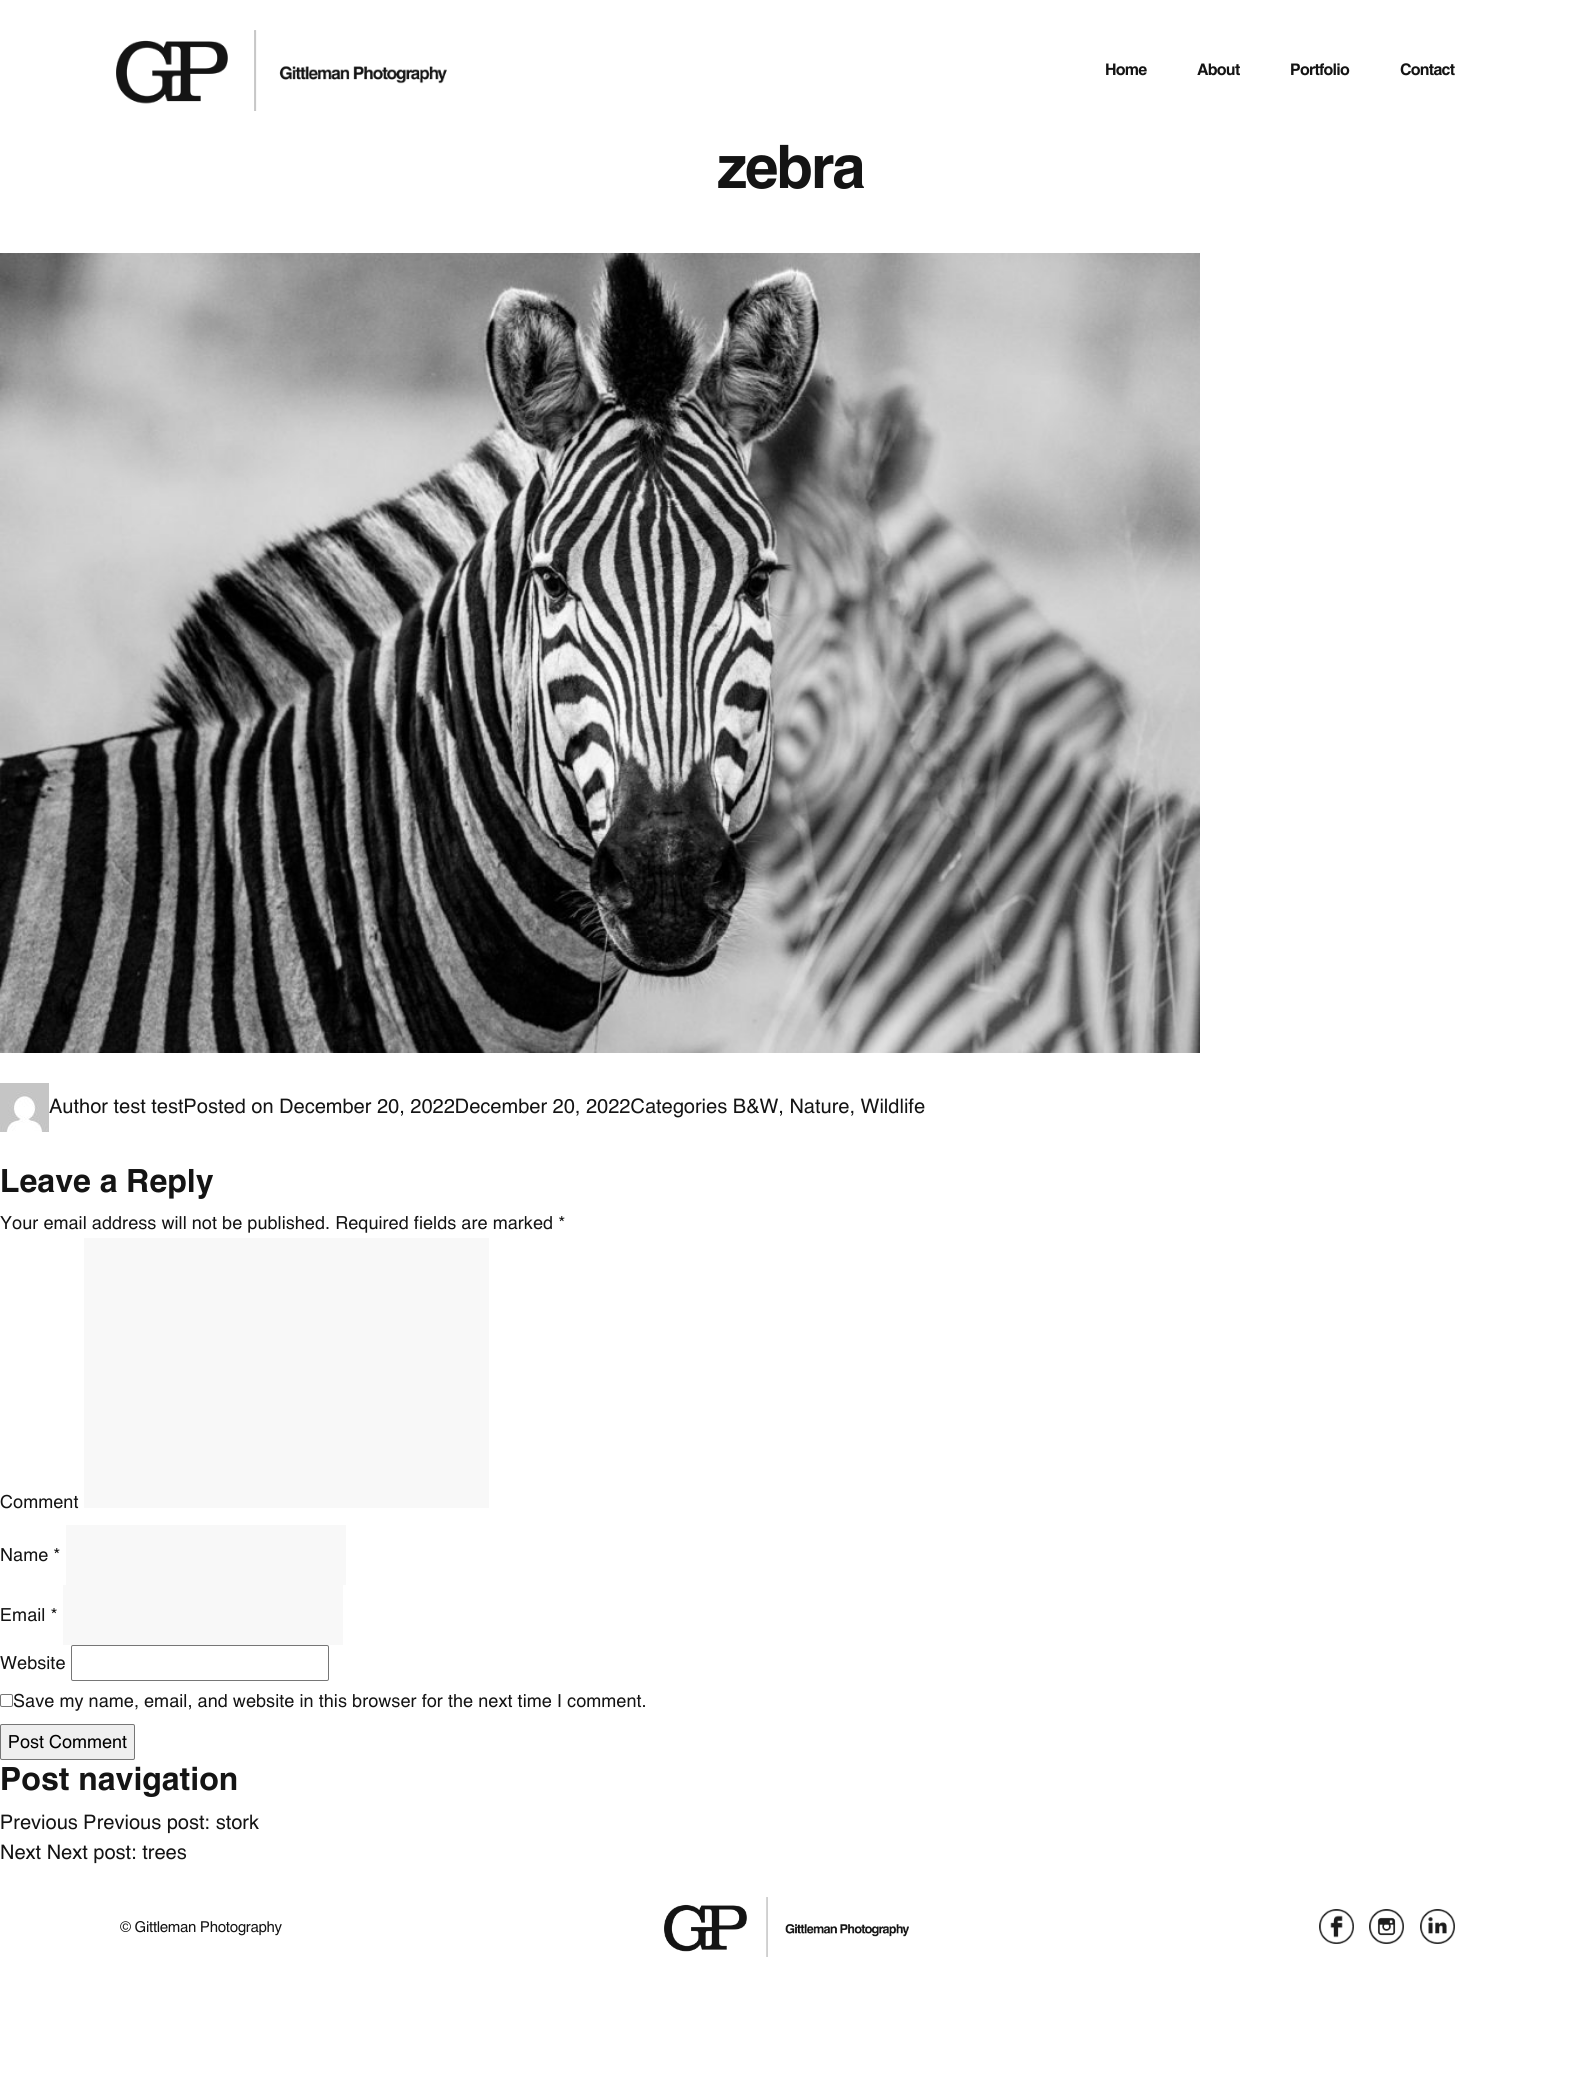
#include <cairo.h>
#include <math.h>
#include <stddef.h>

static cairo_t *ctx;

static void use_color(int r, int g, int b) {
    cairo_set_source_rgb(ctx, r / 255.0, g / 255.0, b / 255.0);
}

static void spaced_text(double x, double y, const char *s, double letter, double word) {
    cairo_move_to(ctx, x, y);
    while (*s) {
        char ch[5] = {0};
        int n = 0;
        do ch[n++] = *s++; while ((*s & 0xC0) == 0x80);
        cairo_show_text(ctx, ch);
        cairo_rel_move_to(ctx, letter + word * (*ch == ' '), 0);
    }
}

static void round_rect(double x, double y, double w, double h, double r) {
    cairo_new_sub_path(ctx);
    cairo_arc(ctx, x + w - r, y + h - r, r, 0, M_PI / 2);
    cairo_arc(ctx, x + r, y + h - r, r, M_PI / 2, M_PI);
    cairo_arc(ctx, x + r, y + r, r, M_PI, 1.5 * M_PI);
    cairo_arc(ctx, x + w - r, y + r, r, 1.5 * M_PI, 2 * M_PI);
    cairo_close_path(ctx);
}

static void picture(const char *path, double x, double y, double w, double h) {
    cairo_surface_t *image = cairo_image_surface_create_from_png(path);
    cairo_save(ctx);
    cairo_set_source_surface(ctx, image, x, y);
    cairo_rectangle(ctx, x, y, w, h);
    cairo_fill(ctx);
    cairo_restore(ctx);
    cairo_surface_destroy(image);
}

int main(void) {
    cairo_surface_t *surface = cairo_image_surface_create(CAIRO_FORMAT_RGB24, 1580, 2090);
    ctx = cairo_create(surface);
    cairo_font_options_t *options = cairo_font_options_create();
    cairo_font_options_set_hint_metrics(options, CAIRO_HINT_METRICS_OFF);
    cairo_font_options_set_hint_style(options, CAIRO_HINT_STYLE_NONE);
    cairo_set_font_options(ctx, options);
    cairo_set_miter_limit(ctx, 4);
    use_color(255, 255, 255);
    cairo_paint(ctx);
    picture("img1.png", 116, 30, 331, 81);
    cairo_select_font_face(ctx, "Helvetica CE", CAIRO_FONT_SLANT_NORMAL, CAIRO_FONT_WEIGHT_BOLD);
    cairo_set_font_size(ctx, 16);
    use_color(20, 20, 20);
    spaced_text(1105, 75, "Home", -0.75, 0);
    spaced_text(1197, 75, "About", -0.75, 0);
    spaced_text(1290, 75, "Portfolio", -0.75, 0);
    spaced_text(1400, 75, "Contact", -0.75, 0);
    cairo_set_font_size(ctx, 60);
    spaced_text(717, 188, "zebra", -2, 0);
    picture("img2.png", 0, 253, 1200, 800);
    picture("img3.png", 0, 1083, 49, 49);
    cairo_select_font_face(ctx, "Helvetica CE", CAIRO_FONT_SLANT_NORMAL, CAIRO_FONT_WEIGHT_NORMAL);
    cairo_set_font_size(ctx, 20);
    cairo_move_to(ctx, 49, 1113);
    cairo_show_text(ctx, "Author test testPosted on December 20, 2022December 20, 2022Categories B&W, Nature, Wildlife");
    cairo_select_font_face(ctx, "Helvetica CE", CAIRO_FONT_SLANT_NORMAL, CAIRO_FONT_WEIGHT_BOLD);
    cairo_set_font_size(ctx, 32);
    cairo_move_to(ctx, 0, 1192);
    cairo_show_text(ctx, "Leave a Reply");
    cairo_select_font_face(ctx, "Helvetica CE", CAIRO_FONT_SLANT_NORMAL, CAIRO_FONT_WEIGHT_NORMAL);
    cairo_set_font_size(ctx, 18);
    spaced_text(0, 1229, "Your email address will not be published. Required fields are marked *", 0.07, 0);
    spaced_text(0, 1508, "Comment", 0.07, 0);
    use_color(248, 248, 248);
    cairo_rectangle(ctx, 84, 1238, 405, 270);
    cairo_fill(ctx);
    use_color(20, 20, 20);
    spaced_text(0, 1561, "Name *", 0.07, 0);
    use_color(248, 248, 248);
    cairo_rectangle(ctx, 66, 1525, 280, 60);
    cairo_fill(ctx);
    use_color(20, 20, 20);
    spaced_text(0, 1621, "Email *", 0.07, 0);
    use_color(248, 248, 248);
    cairo_rectangle(ctx, 63, 1585, 280, 60);
    cairo_fill(ctx);
    use_color(20, 20, 20);
    spaced_text(0, 1669, "Website", 0.07, 0);
    round_rect(71.5, 1645.5, 257, 35, 1.5);
    use_color(118, 118, 118);
    cairo_set_line_width(ctx, 1);
    cairo_stroke(ctx);
    round_rect(0.5, 1694.5, 12, 12, 1.5);
    cairo_stroke(ctx);
    use_color(20, 20, 20);
    spaced_text(13, 1707, "Save my name, email, and website in this browser for the next time I comment.", 0.07, 0);
    use_color(239, 239, 239);
    round_rect(0.5, 1724.5, 134, 35, 1.5);
    cairo_fill_preserve(ctx);
    use_color(118, 118, 118);
    cairo_stroke(ctx);
    use_color(0, 0, 0);
    cairo_move_to(ctx, 8, 1748);
    cairo_show_text(ctx, "Post Comment");
    cairo_select_font_face(ctx, "Helvetica CE", CAIRO_FONT_SLANT_NORMAL, CAIRO_FONT_WEIGHT_BOLD);
    cairo_set_font_size(ctx, 32);
    use_color(20, 20, 20);
    cairo_move_to(ctx, 0, 1790);
    cairo_show_text(ctx, "Post navigation");
    cairo_select_font_face(ctx, "Helvetica CE", CAIRO_FONT_SLANT_NORMAL, CAIRO_FONT_WEIGHT_NORMAL);
    cairo_set_font_size(ctx, 20);
    cairo_move_to(ctx, 0, 1829);
    cairo_show_text(ctx, "Previous Previous post: stork");
    cairo_move_to(ctx, 0, 1859);
    cairo_show_text(ctx, "Next Next post: trees");
    cairo_set_font_size(ctx, 15);
    spaced_text(120, 1932, "© Gittleman Photography", -0.3, 0);
    picture("img4.png", 664, 1897, 245, 60);
    picture("img5.png", 1319, 1909, 35, 35);
    picture("img6.png", 1369, 1909, 35, 35);
    picture("img7.png", 1420, 1909, 35, 35);
    cairo_surface_write_to_png(surface, "result.png");
    cairo_font_options_destroy(options);
    cairo_destroy(ctx);
    cairo_surface_destroy(surface);
    return 0;
}
